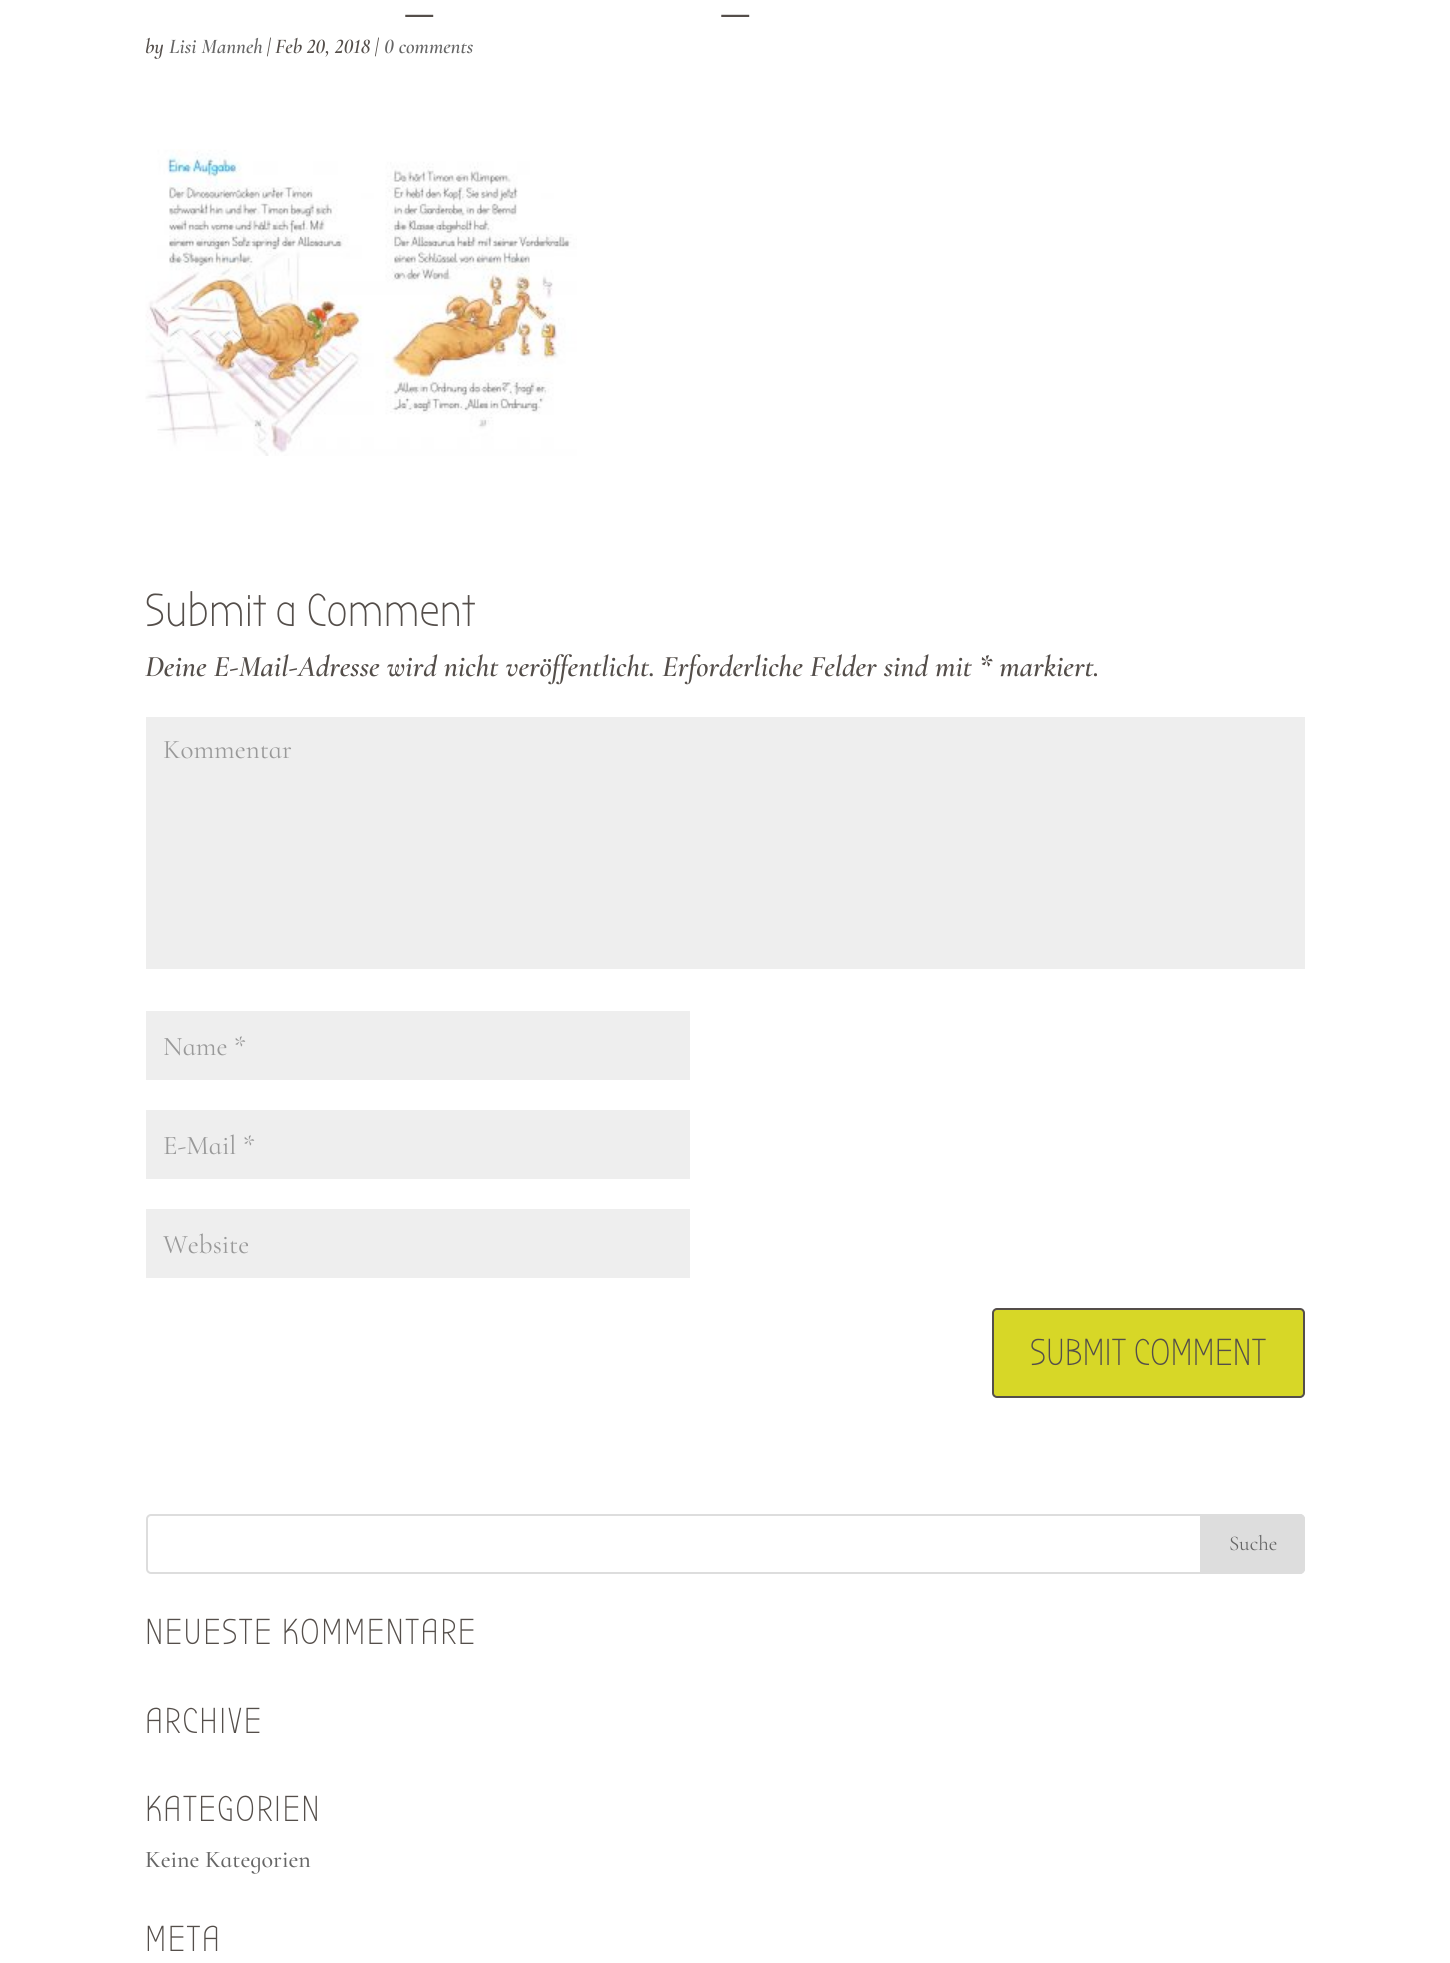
#include <cairo.h>
#include <math.h>
#include <stddef.h>

static cairo_t *ctx;

static void use_color(int r, int g, int b) {
    cairo_set_source_rgb(ctx, r / 255.0, g / 255.0, b / 255.0);
}

static void spaced_text(double x, double y, const char *s, double letter, double word) {
    cairo_move_to(ctx, x, y);
    while (*s) {
        char ch[5] = {0};
        int n = 0;
        do ch[n++] = *s++; while ((*s & 0xC0) == 0x80);
        cairo_show_text(ctx, ch);
        cairo_rel_move_to(ctx, letter + word * (*ch == ' '), 0);
    }
}

static void round_rect(double x, double y, double w, double h, double r) {
    cairo_new_sub_path(ctx);
    cairo_arc(ctx, x + w - r, y + h - r, r, 0, M_PI / 2);
    cairo_arc(ctx, x + r, y + h - r, r, M_PI / 2, M_PI);
    cairo_arc(ctx, x + r, y + r, r, M_PI, 1.5 * M_PI);
    cairo_arc(ctx, x + w - r, y + r, r, 1.5 * M_PI, 2 * M_PI);
    cairo_close_path(ctx);
}

static void picture(const char *path, double x, double y, double w, double h) {
    cairo_surface_t *image = cairo_image_surface_create_from_png(path);
    cairo_save(ctx);
    cairo_set_source_surface(ctx, image, x, y);
    cairo_rectangle(ctx, x, y, w, h);
    cairo_fill(ctx);
    cairo_restore(ctx);
    cairo_surface_destroy(image);
}

int main(void) {
    cairo_surface_t *surface = cairo_image_surface_create(CAIRO_FORMAT_RGB24, 1450, 1963);
    ctx = cairo_create(surface);
    cairo_font_options_t *options = cairo_font_options_create();
    cairo_font_options_set_hint_metrics(options, CAIRO_HINT_METRICS_OFF);
    cairo_font_options_set_hint_style(options, CAIRO_HINT_STYLE_NONE);
    cairo_set_font_options(ctx, options);
    cairo_set_miter_limit(ctx, 4);
    use_color(255, 255, 255);
    cairo_paint(ctx);
    cairo_select_font_face(ctx, "Bubbler One", CAIRO_FONT_SLANT_NORMAL, CAIRO_FONT_WEIGHT_NORMAL);
    cairo_set_font_size(ctx, 60);
    use_color(84, 78, 74);
    cairo_move_to(ctx, 398, 11);
    cairo_show_text(ctx, "_");
    cairo_move_to(ctx, 714, 11);
    cairo_show_text(ctx, "_");
    cairo_select_font_face(ctx, "Cormorant Infant SemiBold", CAIRO_FONT_SLANT_ITALIC, CAIRO_FONT_WEIGHT_NORMAL);
    cairo_set_font_size(ctx, 21);
    cairo_move_to(ctx, 145, 53);
    cairo_show_text(ctx, "by");
    use_color(102, 102, 102);
    cairo_move_to(ctx, 169, 53);
    cairo_show_text(ctx, "Lisi Manneh");
    use_color(84, 78, 74);
    cairo_move_to(ctx, 267, 53);
    cairo_show_text(ctx, "| Feb 20, 2018 |");
    use_color(102, 102, 102);
    cairo_move_to(ctx, 384, 53);
    cairo_show_text(ctx, "0 comments");
    picture("img1.png", 145, 149, 432, 307);
    cairo_select_font_face(ctx, "Bubbler One", CAIRO_FONT_SLANT_NORMAL, CAIRO_FONT_WEIGHT_NORMAL);
    cairo_set_font_size(ctx, 46.5);
    use_color(84, 78, 74);
    cairo_move_to(ctx, 145, 626);
    cairo_show_text(ctx, "Submit a Comment");
    cairo_select_font_face(ctx, "Cormorant Infant SemiBold", CAIRO_FONT_SLANT_ITALIC, CAIRO_FONT_WEIGHT_NORMAL);
    cairo_set_font_size(ctx, 30);
    cairo_move_to(ctx, 145, 676);
    cairo_show_text(ctx, "Deine E-Mail-Adresse wird nicht veröffentlicht. Erforderliche Felder sind mit * markiert.");
    use_color(238, 238, 238);
    cairo_rectangle(ctx, 146, 717, 1159, 252);
    cairo_fill(ctx);
    cairo_select_font_face(ctx, "Cormorant Infant", CAIRO_FONT_SLANT_NORMAL, CAIRO_FONT_WEIGHT_NORMAL);
    cairo_set_font_size(ctx, 27);
    use_color(153, 153, 153);
    cairo_move_to(ctx, 163, 758);
    cairo_show_text(ctx, "Kommentar");
    use_color(238, 238, 238);
    cairo_rectangle(ctx, 146, 1011, 544, 69);
    cairo_fill(ctx);
    use_color(153, 153, 153);
    cairo_move_to(ctx, 163, 1055);
    cairo_show_text(ctx, "Name *");
    use_color(238, 238, 238);
    cairo_rectangle(ctx, 146, 1110, 544, 69);
    cairo_fill(ctx);
    use_color(153, 153, 153);
    cairo_move_to(ctx, 163, 1154);
    cairo_show_text(ctx, "E-Mail *");
    use_color(238, 238, 238);
    cairo_rectangle(ctx, 146, 1209, 544, 69);
    cairo_fill(ctx);
    use_color(153, 153, 153);
    cairo_move_to(ctx, 163, 1253);
    cairo_show_text(ctx, "Website");
    use_color(215, 215, 39);
    round_rect(993, 1309, 311, 88, 4);
    cairo_fill_preserve(ctx);
    use_color(84, 78, 74);
    cairo_stroke(ctx);
    cairo_select_font_face(ctx, "Bubbler One", CAIRO_FONT_SLANT_NORMAL, CAIRO_FONT_WEIGHT_NORMAL);
    cairo_set_font_size(ctx, 37.5);
    cairo_move_to(ctx, 1030, 1365);
    cairo_show_text(ctx, "SUBMIT COMMENT");
    round_rect(147, 1515, 1157, 58, 4);
    use_color(221, 221, 221);
    cairo_stroke(ctx);
    cairo_new_path(ctx);
    cairo_move_to(ctx, 1201, 1515);
    cairo_line_to(ctx, 1300, 1515);
    cairo_curve_to(ctx, 1302, 1515, 1304, 1517, 1304, 1519);
    cairo_line_to(ctx, 1304, 1569);
    cairo_curve_to(ctx, 1304, 1571, 1302, 1573, 1300, 1573);
    cairo_line_to(ctx, 1201, 1573);
    cairo_close_path(ctx);
    cairo_fill_preserve(ctx);
    cairo_stroke(ctx);
    cairo_select_font_face(ctx, "Cormorant Infant", CAIRO_FONT_SLANT_NORMAL, CAIRO_FONT_WEIGHT_NORMAL);
    cairo_set_font_size(ctx, 21);
    use_color(102, 102, 102);
    cairo_move_to(ctx, 1229, 1550);
    cairo_show_text(ctx, "Suche");
    cairo_select_font_face(ctx, "Bubbler One", CAIRO_FONT_SLANT_NORMAL, CAIRO_FONT_WEIGHT_NORMAL);
    cairo_set_font_size(ctx, 36);
    use_color(84, 78, 74);
    spaced_text(145, 1644, "NEUESTE KOMMENTARE", 1.5, 0);
    spaced_text(145, 1733, "ARCHIVE", 1.5, 0);
    spaced_text(145, 1821, "KATEGORIEN", 1.5, 0);
    cairo_select_font_face(ctx, "Cormorant Infant Medium", CAIRO_FONT_SLANT_NORMAL, CAIRO_FONT_WEIGHT_NORMAL);
    cairo_set_font_size(ctx, 24);
    use_color(102, 102, 102);
    cairo_move_to(ctx, 145, 1867);
    cairo_show_text(ctx, "Keine Kategorien");
    cairo_select_font_face(ctx, "Bubbler One", CAIRO_FONT_SLANT_NORMAL, CAIRO_FONT_WEIGHT_NORMAL);
    cairo_set_font_size(ctx, 36);
    use_color(84, 78, 74);
    spaced_text(145, 1951, "META", 1.5, 0);
    cairo_surface_write_to_png(surface, "result.png");
    cairo_font_options_destroy(options);
    cairo_destroy(ctx);
    cairo_surface_destroy(surface);
    return 0;
}
